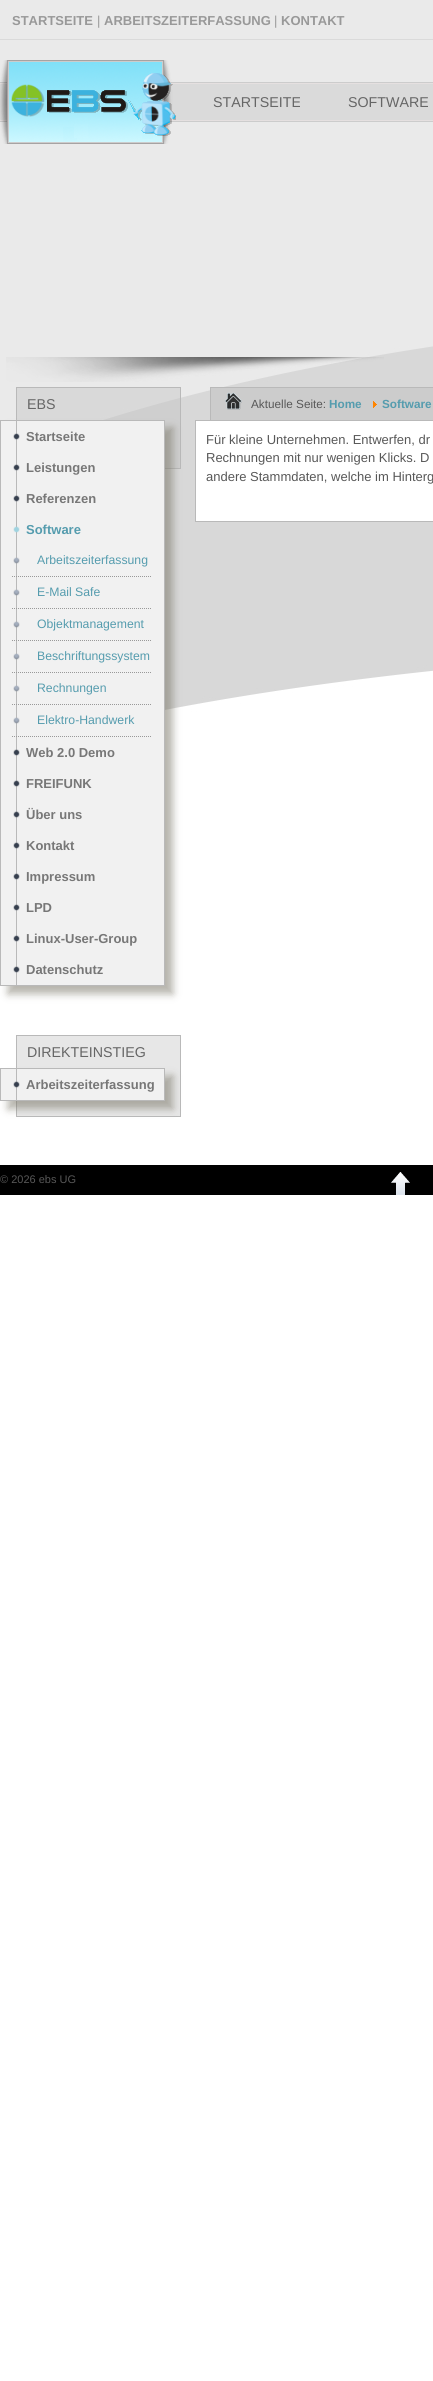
#include <cairo.h>
#include <math.h>
#include <stddef.h>

static cairo_t *ctx;

static void use_color(int r, int g, int b) {
    cairo_set_source_rgb(ctx, r / 255.0, g / 255.0, b / 255.0);
}

static void round_rect(double x, double y, double w, double h, double r) {
    cairo_new_sub_path(ctx);
    cairo_arc(ctx, x + w - r, y + h - r, r, 0, M_PI / 2);
    cairo_arc(ctx, x + r, y + h - r, r, M_PI / 2, M_PI);
    cairo_arc(ctx, x + r, y + r, r, M_PI, 1.5 * M_PI);
    cairo_arc(ctx, x + w - r, y + r, r, 1.5 * M_PI, 2 * M_PI);
    cairo_close_path(ctx);
}

static void shadow(double x, double y, double w, double h, double r, double blur, double alpha) {
    cairo_push_group_with_content(ctx, CAIRO_CONTENT_ALPHA);
    cairo_set_operator(ctx, CAIRO_OPERATOR_SOURCE);
    for (int i = 15; i >= -15 && fmin(w, h) + blur * i / 3 > 0; i -= 2) {
        double e = blur * i / 6;
        cairo_set_source_rgba(ctx, 0, 0, 0, alpha * erfc((i - 1) / 8.5) / 2);
        round_rect(x - e, y - e, w + 2 * e, h + 2 * e, fmax(0, fmin(r + e + blur * .6, fmin(w, h) / 2 + e)));
        cairo_fill(ctx);
    }
    cairo_pattern_t *soft = cairo_pop_group(ctx);
    cairo_mask(ctx, soft);
    cairo_pattern_destroy(soft);
}

static void picture(const char *path, double x, double y, double w, double h) {
    cairo_surface_t *image = cairo_image_surface_create_from_png(path);
    cairo_save(ctx);
    cairo_set_source_surface(ctx, image, x, y);
    cairo_rectangle(ctx, x, y, w, h);
    cairo_fill(ctx);
    cairo_restore(ctx);
    cairo_surface_destroy(image);
}

int main(void) {
    cairo_surface_t *surface = cairo_image_surface_create(CAIRO_FORMAT_RGB24, 433, 2381);
    ctx = cairo_create(surface);
    cairo_font_options_t *options = cairo_font_options_create();
    cairo_font_options_set_hint_metrics(options, CAIRO_HINT_METRICS_OFF);
    cairo_font_options_set_hint_style(options, CAIRO_HINT_STYLE_NONE);
    cairo_set_font_options(ctx, options);
    cairo_set_miter_limit(ctx, 4);
    use_color(255, 255, 255);
    cairo_paint(ctx);
    picture("img1.png", 0, 0, 433, 749);
    cairo_select_font_face(ctx, "Liberation Sans", CAIRO_FONT_SLANT_NORMAL, CAIRO_FONT_WEIGHT_BOLD);
    cairo_set_font_size(ctx, 13);
    use_color(153, 153, 153);
    cairo_move_to(ctx, 12, 25);
    cairo_show_text(ctx, "STARTSEITE");
    cairo_select_font_face(ctx, "Liberation Sans", CAIRO_FONT_SLANT_NORMAL, CAIRO_FONT_WEIGHT_NORMAL);
    cairo_move_to(ctx, 97, 25);
    cairo_show_text(ctx, "|");
    cairo_select_font_face(ctx, "Liberation Sans", CAIRO_FONT_SLANT_NORMAL, CAIRO_FONT_WEIGHT_BOLD);
    cairo_move_to(ctx, 104, 25);
    cairo_show_text(ctx, "ARBEITSZEITERFASSUNG");
    cairo_select_font_face(ctx, "Liberation Sans", CAIRO_FONT_SLANT_NORMAL, CAIRO_FONT_WEIGHT_NORMAL);
    cairo_move_to(ctx, 274, 25);
    cairo_show_text(ctx, "|");
    cairo_select_font_face(ctx, "Liberation Sans", CAIRO_FONT_SLANT_NORMAL, CAIRO_FONT_WEIGHT_BOLD);
    cairo_move_to(ctx, 281, 25);
    cairo_show_text(ctx, "KONTAKT");
    picture("img10.png", 0, 39, 433, 83);
    picture("img2.png", 0, 60, 176, 84);
    cairo_select_font_face(ctx, "Liberation Sans", CAIRO_FONT_SLANT_NORMAL, CAIRO_FONT_WEIGHT_NORMAL);
    cairo_set_font_size(ctx, 14.25);
    use_color(102, 102, 102);
    cairo_move_to(ctx, 213, 107);
    cairo_show_text(ctx, "STARTSEITE");
    cairo_move_to(ctx, 348, 107);
    cairo_show_text(ctx, "SOFTWARE");
    picture("img3.png", 6, 357, 378, 25);
    cairo_set_source_rgba(ctx, 0.761, 0.761, 0.761, 0.4);
    cairo_rectangle(ctx, 16.5, 387.5, 164, 81);
    cairo_fill_preserve(ctx);
    use_color(185, 185, 185);
    cairo_set_line_width(ctx, 1);
    cairo_stroke(ctx);
    use_color(102, 102, 102);
    cairo_move_to(ctx, 27, 409);
    cairo_show_text(ctx, "EBS");
    use_color(117, 113, 98);
    shadow(8, 428, 165, 566, 0, 4, 0.52);
    use_color(241, 241, 241);
    cairo_rectangle(ctx, 0.5, 420.5, 164, 565);
    cairo_fill_preserve(ctx);
    use_color(185, 185, 185);
    cairo_stroke(ctx);
    cairo_rectangle(ctx, 16, 421, 1, 564);
    cairo_fill(ctx);
    picture("img4.png", 13, 433, 7, 7);
    cairo_select_font_face(ctx, "Liberation Sans", CAIRO_FONT_SLANT_NORMAL, CAIRO_FONT_WEIGHT_BOLD);
    cairo_set_font_size(ctx, 13);
    use_color(119, 119, 119);
    cairo_move_to(ctx, 26, 441);
    cairo_show_text(ctx, "Startseite");
    picture("img4.png", 13, 464, 7, 7);
    cairo_move_to(ctx, 26, 472);
    cairo_show_text(ctx, "Leistungen");
    picture("img4.png", 13, 495, 7, 7);
    cairo_move_to(ctx, 26, 503);
    cairo_show_text(ctx, "Referenzen");
    picture("img5.png", 13, 526, 7, 7);
    use_color(85, 156, 174);
    cairo_move_to(ctx, 26, 534);
    cairo_show_text(ctx, "Software");
    picture("img6.png", 13, 557, 7, 7);
    cairo_new_path(ctx);
    cairo_move_to(ctx, 12, 576.5);
    cairo_line_to(ctx, 152, 576.5);
    use_color(153, 153, 153);
    cairo_set_dash(ctx, (double[]){1, 1}, 2, 0);
    cairo_stroke(ctx);
    cairo_select_font_face(ctx, "Liberation Sans", CAIRO_FONT_SLANT_NORMAL, CAIRO_FONT_WEIGHT_NORMAL);
    cairo_set_font_size(ctx, 12.25);
    use_color(85, 156, 174);
    cairo_move_to(ctx, 37, 564);
    cairo_show_text(ctx, "Arbeitszeiterfassung");
    picture("img6.png", 13, 589, 7, 7);
    cairo_new_path(ctx);
    cairo_move_to(ctx, 12, 608.5);
    cairo_line_to(ctx, 152, 608.5);
    use_color(153, 153, 153);
    cairo_stroke(ctx);
    use_color(85, 156, 174);
    cairo_move_to(ctx, 37, 596);
    cairo_show_text(ctx, "E-Mail Safe");
    picture("img6.png", 13, 621, 7, 7);
    cairo_new_path(ctx);
    cairo_move_to(ctx, 12, 640.5);
    cairo_line_to(ctx, 152, 640.5);
    use_color(153, 153, 153);
    cairo_stroke(ctx);
    use_color(85, 156, 174);
    cairo_move_to(ctx, 37, 628);
    cairo_show_text(ctx, "Objektmanagement");
    picture("img6.png", 13, 653, 7, 7);
    cairo_new_path(ctx);
    cairo_move_to(ctx, 12, 672.5);
    cairo_line_to(ctx, 152, 672.5);
    use_color(153, 153, 153);
    cairo_stroke(ctx);
    use_color(85, 156, 174);
    cairo_move_to(ctx, 37, 660);
    cairo_show_text(ctx, "Beschriftungssystem");
    picture("img6.png", 13, 685, 7, 7);
    cairo_new_path(ctx);
    cairo_move_to(ctx, 12, 704.5);
    cairo_line_to(ctx, 152, 704.5);
    use_color(153, 153, 153);
    cairo_stroke(ctx);
    use_color(85, 156, 174);
    cairo_move_to(ctx, 37, 692);
    cairo_show_text(ctx, "Rechnungen");
    picture("img6.png", 13, 717, 7, 7);
    cairo_new_path(ctx);
    cairo_move_to(ctx, 12, 736.5);
    cairo_line_to(ctx, 152, 736.5);
    use_color(153, 153, 153);
    cairo_stroke(ctx);
    use_color(85, 156, 174);
    cairo_move_to(ctx, 37, 724);
    cairo_show_text(ctx, "Elektro-Handwerk");
    picture("img4.png", 13, 749, 7, 7);
    cairo_select_font_face(ctx, "Liberation Sans", CAIRO_FONT_SLANT_NORMAL, CAIRO_FONT_WEIGHT_BOLD);
    cairo_set_font_size(ctx, 13);
    use_color(119, 119, 119);
    cairo_move_to(ctx, 26, 757);
    cairo_show_text(ctx, "Web 2.0 Demo");
    picture("img4.png", 13, 780, 7, 7);
    cairo_move_to(ctx, 26, 788);
    cairo_show_text(ctx, "FREIFUNK");
    picture("img4.png", 13, 811, 7, 7);
    cairo_move_to(ctx, 26, 819);
    cairo_show_text(ctx, "Über uns");
    picture("img4.png", 13, 842, 7, 7);
    cairo_move_to(ctx, 26, 850);
    cairo_show_text(ctx, "Kontakt");
    picture("img4.png", 13, 873, 7, 7);
    cairo_move_to(ctx, 26, 881);
    cairo_show_text(ctx, "Impressum");
    picture("img4.png", 13, 904, 7, 7);
    cairo_move_to(ctx, 26, 912);
    cairo_show_text(ctx, "LPD");
    picture("img4.png", 13, 935, 7, 7);
    cairo_move_to(ctx, 26, 943);
    cairo_show_text(ctx, "Linux-User-Group");
    picture("img4.png", 13, 966, 7, 7);
    cairo_move_to(ctx, 26, 974);
    cairo_show_text(ctx, "Datenschutz");
    use_color(231, 231, 231);
    cairo_rectangle(ctx, 16.5, 1035.5, 164, 81);
    cairo_fill_preserve(ctx);
    use_color(185, 185, 185);
    cairo_set_dash(ctx, NULL, 0, 0);
    cairo_stroke(ctx);
    cairo_select_font_face(ctx, "Liberation Sans", CAIRO_FONT_SLANT_NORMAL, CAIRO_FONT_WEIGHT_NORMAL);
    cairo_set_font_size(ctx, 14.25);
    use_color(102, 102, 102);
    cairo_move_to(ctx, 27, 1057);
    cairo_show_text(ctx, "DIREKTEINSTIEG");
    use_color(117, 113, 98);
    shadow(8, 1076, 165, 33, 0, 4, 0.52);
    use_color(241, 241, 241);
    cairo_rectangle(ctx, 0.5, 1068.5, 164, 32);
    cairo_fill_preserve(ctx);
    use_color(185, 185, 185);
    cairo_stroke(ctx);
    cairo_rectangle(ctx, 16, 1069, 1, 31);
    cairo_fill(ctx);
    picture("img4.png", 13, 1081, 7, 7);
    cairo_select_font_face(ctx, "Liberation Sans", CAIRO_FONT_SLANT_NORMAL, CAIRO_FONT_WEIGHT_BOLD);
    cairo_set_font_size(ctx, 13);
    use_color(119, 119, 119);
    cairo_move_to(ctx, 26, 1089);
    cairo_show_text(ctx, "Arbeitszeiterfassung");
    use_color(204, 204, 204);
    cairo_rectangle(ctx, 211, 388, 222, 32);
    cairo_fill(ctx);
    picture("img7.png", 225, 392, 17, 18);
    use_color(185, 185, 185);
    cairo_rectangle(ctx, 210, 387, 223, 1);
    cairo_fill(ctx);
    cairo_rectangle(ctx, 210, 387, 1, 33);
    cairo_fill(ctx);
    cairo_select_font_face(ctx, "Liberation Sans", CAIRO_FONT_SLANT_NORMAL, CAIRO_FONT_WEIGHT_NORMAL);
    cairo_set_font_size(ctx, 11.75);
    use_color(88, 88, 88);
    cairo_move_to(ctx, 251, 408);
    cairo_show_text(ctx, "Aktuelle Seite:");
    cairo_select_font_face(ctx, "Liberation Sans", CAIRO_FONT_SLANT_NORMAL, CAIRO_FONT_WEIGHT_BOLD);
    use_color(85, 156, 174);
    cairo_move_to(ctx, 329, 408);
    cairo_show_text(ctx, "Home");
    picture("img8.png", 373, 401, 4, 7);
    cairo_move_to(ctx, 382, 408);
    cairo_show_text(ctx, "Software");
    use_color(255, 255, 255);
    cairo_rectangle(ctx, 195.5, 420.5, 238, 101);
    cairo_fill_preserve(ctx);
    use_color(185, 185, 185);
    cairo_stroke(ctx);
    cairo_select_font_face(ctx, "Liberation Sans", CAIRO_FONT_SLANT_NORMAL, CAIRO_FONT_WEIGHT_NORMAL);
    cairo_set_font_size(ctx, 13);
    use_color(88, 88, 88);
    cairo_move_to(ctx, 206, 444);
    cairo_show_text(ctx, "Für kleine Unternehmen. Entwerfen, dr");
    cairo_move_to(ctx, 206, 462);
    cairo_show_text(ctx, "Rechnungen mit nur wenigen Klicks. D");
    cairo_move_to(ctx, 206, 481);
    cairo_show_text(ctx, "andere Stammdaten, welche im Hinterg");
    use_color(0, 0, 0);
    cairo_rectangle(ctx, 0, 1165, 433, 30);
    cairo_fill(ctx);
    cairo_set_font_size(ctx, 11);
    use_color(88, 88, 88);
    cairo_move_to(ctx, 0, 1183);
    cairo_show_text(ctx, "© 2026 ebs UG");
    picture("img9.png", 391, 1172, 19, 23);
    cairo_surface_write_to_png(surface, "result.png");
    cairo_font_options_destroy(options);
    cairo_destroy(ctx);
    cairo_surface_destroy(surface);
    return 0;
}
